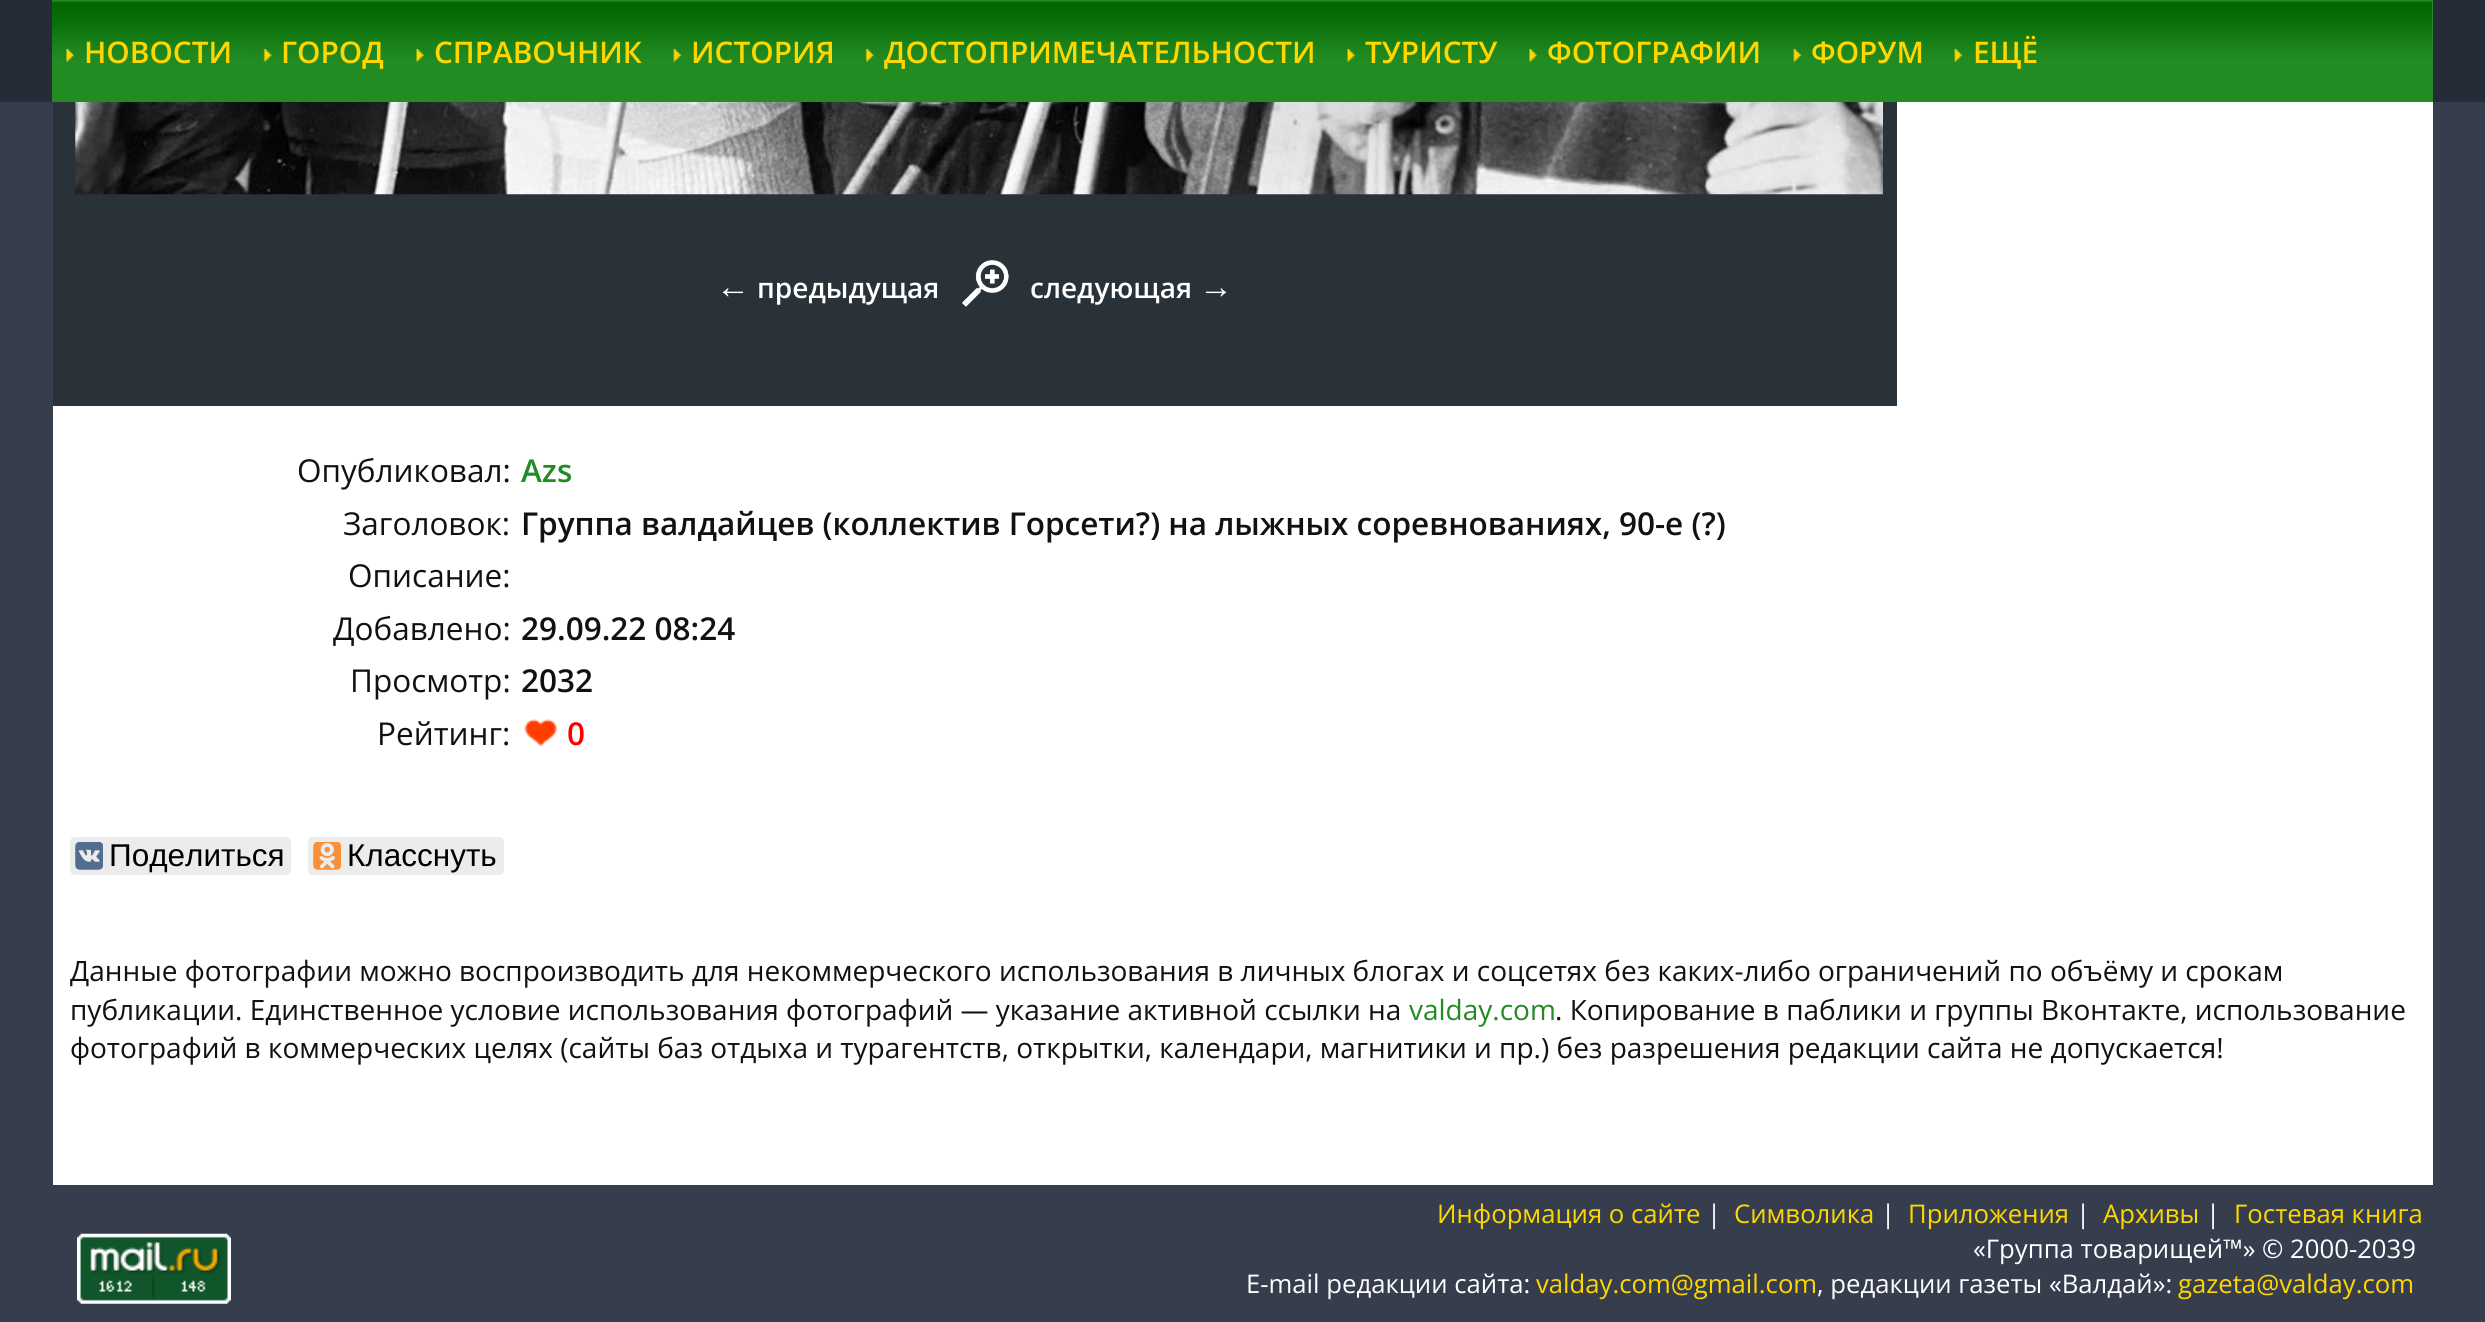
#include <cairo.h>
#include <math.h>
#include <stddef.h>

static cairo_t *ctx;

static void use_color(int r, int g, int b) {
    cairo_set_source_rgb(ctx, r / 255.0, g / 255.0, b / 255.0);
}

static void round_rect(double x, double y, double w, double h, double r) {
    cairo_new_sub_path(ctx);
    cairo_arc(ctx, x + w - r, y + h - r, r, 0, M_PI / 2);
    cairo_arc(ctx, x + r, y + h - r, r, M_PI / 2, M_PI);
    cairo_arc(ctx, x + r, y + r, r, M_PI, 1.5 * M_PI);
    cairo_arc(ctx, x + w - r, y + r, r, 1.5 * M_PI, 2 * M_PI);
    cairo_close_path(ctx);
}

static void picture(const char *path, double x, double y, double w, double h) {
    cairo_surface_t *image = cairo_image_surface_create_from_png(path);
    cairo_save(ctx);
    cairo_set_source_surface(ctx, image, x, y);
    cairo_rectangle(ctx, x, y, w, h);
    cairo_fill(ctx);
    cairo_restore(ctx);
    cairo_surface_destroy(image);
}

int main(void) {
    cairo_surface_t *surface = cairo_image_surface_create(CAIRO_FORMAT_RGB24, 2485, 1322);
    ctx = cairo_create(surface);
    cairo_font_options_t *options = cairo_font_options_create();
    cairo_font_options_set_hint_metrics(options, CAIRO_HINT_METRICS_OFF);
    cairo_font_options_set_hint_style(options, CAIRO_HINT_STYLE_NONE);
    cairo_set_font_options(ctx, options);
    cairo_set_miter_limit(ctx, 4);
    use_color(54, 62, 78);
    cairo_paint(ctx);
    cairo_set_source_rgba(ctx, 0, 0, 0, 0.3);
    cairo_rectangle(ctx, 0, 0, 2485, 102);
    cairo_fill(ctx);
    use_color(34, 139, 34);
    cairo_rectangle(ctx, 53, 0, 2380, 102);
    cairo_fill(ctx);
    picture("img1.png", 52, 0, 2380, 102);
    picture("img2.png", 66, 49, 8, 13);
    cairo_select_font_face(ctx, "Open Sans SemiBold", CAIRO_FONT_SLANT_NORMAL, CAIRO_FONT_WEIGHT_NORMAL);
    cairo_set_font_size(ctx, 29.75);
    use_color(255, 215, 0);
    cairo_move_to(ctx, 84, 63);
    cairo_show_text(ctx, "НОВОСТИ");
    picture("img3.png", 263, 49, 9, 13);
    cairo_move_to(ctx, 281, 63);
    cairo_show_text(ctx, "ГОРОД");
    picture("img4.png", 416, 49, 8, 13);
    cairo_move_to(ctx, 434, 63);
    cairo_show_text(ctx, "СПРАВОЧНИК");
    picture("img5.png", 673, 49, 9, 13);
    cairo_move_to(ctx, 691, 63);
    cairo_show_text(ctx, "ИСТОРИЯ");
    picture("img3.png", 865, 49, 9, 13);
    cairo_move_to(ctx, 884, 63);
    cairo_show_text(ctx, "ДОСТОПРИМЕЧАТЕЛЬНОСТИ");
    picture("img6.png", 1347, 49, 8, 13);
    cairo_move_to(ctx, 1365, 63);
    cairo_show_text(ctx, "ТУРИСТУ");
    picture("img7.png", 1529, 49, 8, 13);
    cairo_move_to(ctx, 1547, 63);
    cairo_show_text(ctx, "ФОТОГРАФИИ");
    picture("img8.png", 1793, 49, 9, 13);
    cairo_move_to(ctx, 1811, 63);
    cairo_show_text(ctx, "ФОРУМ");
    picture("img9.png", 1954, 49, 9, 13);
    cairo_move_to(ctx, 1973, 63);
    cairo_show_text(ctx, "ЕЩЁ");
    use_color(255, 255, 255);
    cairo_rectangle(ctx, 53, 102, 2380, 1083);
    cairo_fill(ctx);
    use_color(41, 50, 56);
    cairo_rectangle(ctx, 53, 102, 1844, 304);
    cairo_fill(ctx);
    picture("img10.png", 75, 102, 1808, 93);
    cairo_select_font_face(ctx, "Liberation Sans", CAIRO_FONT_SLANT_NORMAL, CAIRO_FONT_WEIGHT_BOLD);
    cairo_set_font_size(ctx, 34);
    use_color(255, 255, 255);
    cairo_move_to(ctx, 716, 298);
    cairo_show_text(ctx, "←");
    cairo_select_font_face(ctx, "Open Sans SemiBold", CAIRO_FONT_SLANT_NORMAL, CAIRO_FONT_WEIGHT_NORMAL);
    cairo_set_font_size(ctx, 28);
    cairo_move_to(ctx, 757, 298);
    cairo_show_text(ctx, "предыдущая");
    picture("img11.png", 962, 260, 47, 47);
    cairo_move_to(ctx, 1030, 298);
    cairo_show_text(ctx, "следующая");
    cairo_select_font_face(ctx, "Liberation Sans", CAIRO_FONT_SLANT_NORMAL, CAIRO_FONT_WEIGHT_BOLD);
    cairo_set_font_size(ctx, 34);
    cairo_move_to(ctx, 1199, 298);
    cairo_show_text(ctx, "→");
    cairo_select_font_face(ctx, "Open Sans", CAIRO_FONT_SLANT_NORMAL, CAIRO_FONT_WEIGHT_NORMAL);
    cairo_set_font_size(ctx, 31.5);
    use_color(17, 17, 17);
    cairo_move_to(ctx, 297, 482);
    cairo_show_text(ctx, "Опубликовал:");
    cairo_select_font_face(ctx, "Open Sans SemiBold", CAIRO_FONT_SLANT_NORMAL, CAIRO_FONT_WEIGHT_NORMAL);
    use_color(34, 139, 34);
    cairo_move_to(ctx, 521, 482);
    cairo_show_text(ctx, "Azs");
    cairo_select_font_face(ctx, "Open Sans", CAIRO_FONT_SLANT_NORMAL, CAIRO_FONT_WEIGHT_NORMAL);
    use_color(17, 17, 17);
    cairo_move_to(ctx, 343, 535);
    cairo_show_text(ctx, "Заголовок:");
    cairo_select_font_face(ctx, "Open Sans SemiBold", CAIRO_FONT_SLANT_NORMAL, CAIRO_FONT_WEIGHT_NORMAL);
    cairo_move_to(ctx, 521, 535);
    cairo_show_text(ctx, "Группа валдайцев (коллектив Горсети?) на лыжных соревнованиях, 90-е (?)");
    cairo_select_font_face(ctx, "Open Sans", CAIRO_FONT_SLANT_NORMAL, CAIRO_FONT_WEIGHT_NORMAL);
    cairo_move_to(ctx, 348, 587);
    cairo_show_text(ctx, "Описание:");
    cairo_move_to(ctx, 333, 640);
    cairo_show_text(ctx, "Добавлено:");
    cairo_select_font_face(ctx, "Open Sans SemiBold", CAIRO_FONT_SLANT_NORMAL, CAIRO_FONT_WEIGHT_NORMAL);
    cairo_move_to(ctx, 521, 640);
    cairo_show_text(ctx, "29.09.22 08:24");
    cairo_select_font_face(ctx, "Open Sans", CAIRO_FONT_SLANT_NORMAL, CAIRO_FONT_WEIGHT_NORMAL);
    cairo_move_to(ctx, 350, 692);
    cairo_show_text(ctx, "Просмотр:");
    cairo_select_font_face(ctx, "Open Sans SemiBold", CAIRO_FONT_SLANT_NORMAL, CAIRO_FONT_WEIGHT_NORMAL);
    cairo_move_to(ctx, 521, 692);
    cairo_show_text(ctx, "2032");
    cairo_select_font_face(ctx, "Open Sans", CAIRO_FONT_SLANT_NORMAL, CAIRO_FONT_WEIGHT_NORMAL);
    cairo_move_to(ctx, 377, 745);
    cairo_show_text(ctx, "Рейтинг:");
    picture("img12.png", 524, 719, 33, 27);
    cairo_select_font_face(ctx, "Open Sans SemiBold", CAIRO_FONT_SLANT_NORMAL, CAIRO_FONT_WEIGHT_NORMAL);
    use_color(255, 0, 0);
    cairo_move_to(ctx, 567, 745);
    cairo_show_text(ctx, "0");
    use_color(236, 236, 236);
    round_rect(70, 837, 221, 38, 5);
    cairo_fill(ctx);
    picture("img13.png", 75, 842, 28, 28);
    cairo_select_font_face(ctx, "Liberation Sans", CAIRO_FONT_SLANT_NORMAL, CAIRO_FONT_WEIGHT_NORMAL);
    use_color(0, 0, 0);
    cairo_move_to(ctx, 109, 866);
    cairo_show_text(ctx, "Поделиться");
    use_color(236, 236, 236);
    round_rect(308, 837, 196, 38, 5);
    cairo_fill(ctx);
    picture("img14.png", 313, 842, 28, 28);
    use_color(0, 0, 0);
    cairo_move_to(ctx, 347, 866);
    cairo_show_text(ctx, "Класснуть");
    cairo_select_font_face(ctx, "Open Sans", CAIRO_FONT_SLANT_NORMAL, CAIRO_FONT_WEIGHT_NORMAL);
    cairo_set_font_size(ctx, 28);
    use_color(17, 17, 17);
    cairo_move_to(ctx, 70, 981);
    cairo_show_text(ctx, "Данные фотографии можно воспроизводить для некоммерческого использования в личных блогах и соцсетях без каких-либо ограничений по объёму и срокам");
    cairo_move_to(ctx, 70, 1020);
    cairo_show_text(ctx, "публикации. Единственное условие использования фотографий — указание активной ссылки на");
    use_color(34, 139, 34);
    cairo_move_to(ctx, 1409, 1020);
    cairo_show_text(ctx, "valday.com");
    use_color(17, 17, 17);
    cairo_move_to(ctx, 1555, 1020);
    cairo_show_text(ctx, ". Копирование в паблики и группы Вконтакте, использование");
    cairo_move_to(ctx, 70, 1058);
    cairo_show_text(ctx, "фотографий в коммерческих целях (сайты баз отдыха и турагентств, открытки, календари, магнитики и пр.) без разрешения редакции сайта не допускается!");
    picture("img15.png", 77, 1233, 154, 71);
    cairo_set_font_size(ctx, 25.7);
    use_color(255, 215, 0);
    cairo_move_to(ctx, 1437, 1223);
    cairo_show_text(ctx, "Информация о сайте");
    use_color(255, 255, 255);
    cairo_move_to(ctx, 1707, 1223);
    cairo_show_text(ctx, "|");
    use_color(255, 215, 0);
    cairo_move_to(ctx, 1734, 1223);
    cairo_show_text(ctx, "Символика");
    use_color(255, 255, 255);
    cairo_move_to(ctx, 1881, 1223);
    cairo_show_text(ctx, "|");
    use_color(255, 215, 0);
    cairo_move_to(ctx, 1908, 1223);
    cairo_show_text(ctx, "Приложения");
    use_color(255, 255, 255);
    cairo_move_to(ctx, 2076, 1223);
    cairo_show_text(ctx, "|");
    use_color(255, 215, 0);
    cairo_move_to(ctx, 2103, 1223);
    cairo_show_text(ctx, "Архивы");
    use_color(255, 255, 255);
    cairo_move_to(ctx, 2206, 1223);
    cairo_show_text(ctx, "|");
    use_color(255, 215, 0);
    cairo_move_to(ctx, 2234, 1223);
    cairo_show_text(ctx, "Гостевая книга");
    use_color(255, 255, 255);
    cairo_move_to(ctx, 1973, 1258);
    cairo_show_text(ctx, "«Группа товарищей™» © 2000-2039");
    cairo_move_to(ctx, 1246, 1293);
    cairo_show_text(ctx, "E-mail редакции сайта:");
    use_color(255, 215, 0);
    cairo_move_to(ctx, 1536, 1293);
    cairo_show_text(ctx, "valday.com@gmail.com");
    use_color(255, 255, 255);
    cairo_move_to(ctx, 1817, 1293);
    cairo_show_text(ctx, ", редакции газеты «Валдай»:");
    use_color(255, 215, 0);
    cairo_move_to(ctx, 2178, 1293);
    cairo_show_text(ctx, "gazeta@valday.com");
    cairo_surface_write_to_png(surface, "result.png");
    cairo_font_options_destroy(options);
    cairo_destroy(ctx);
    cairo_surface_destroy(surface);
    return 0;
}
